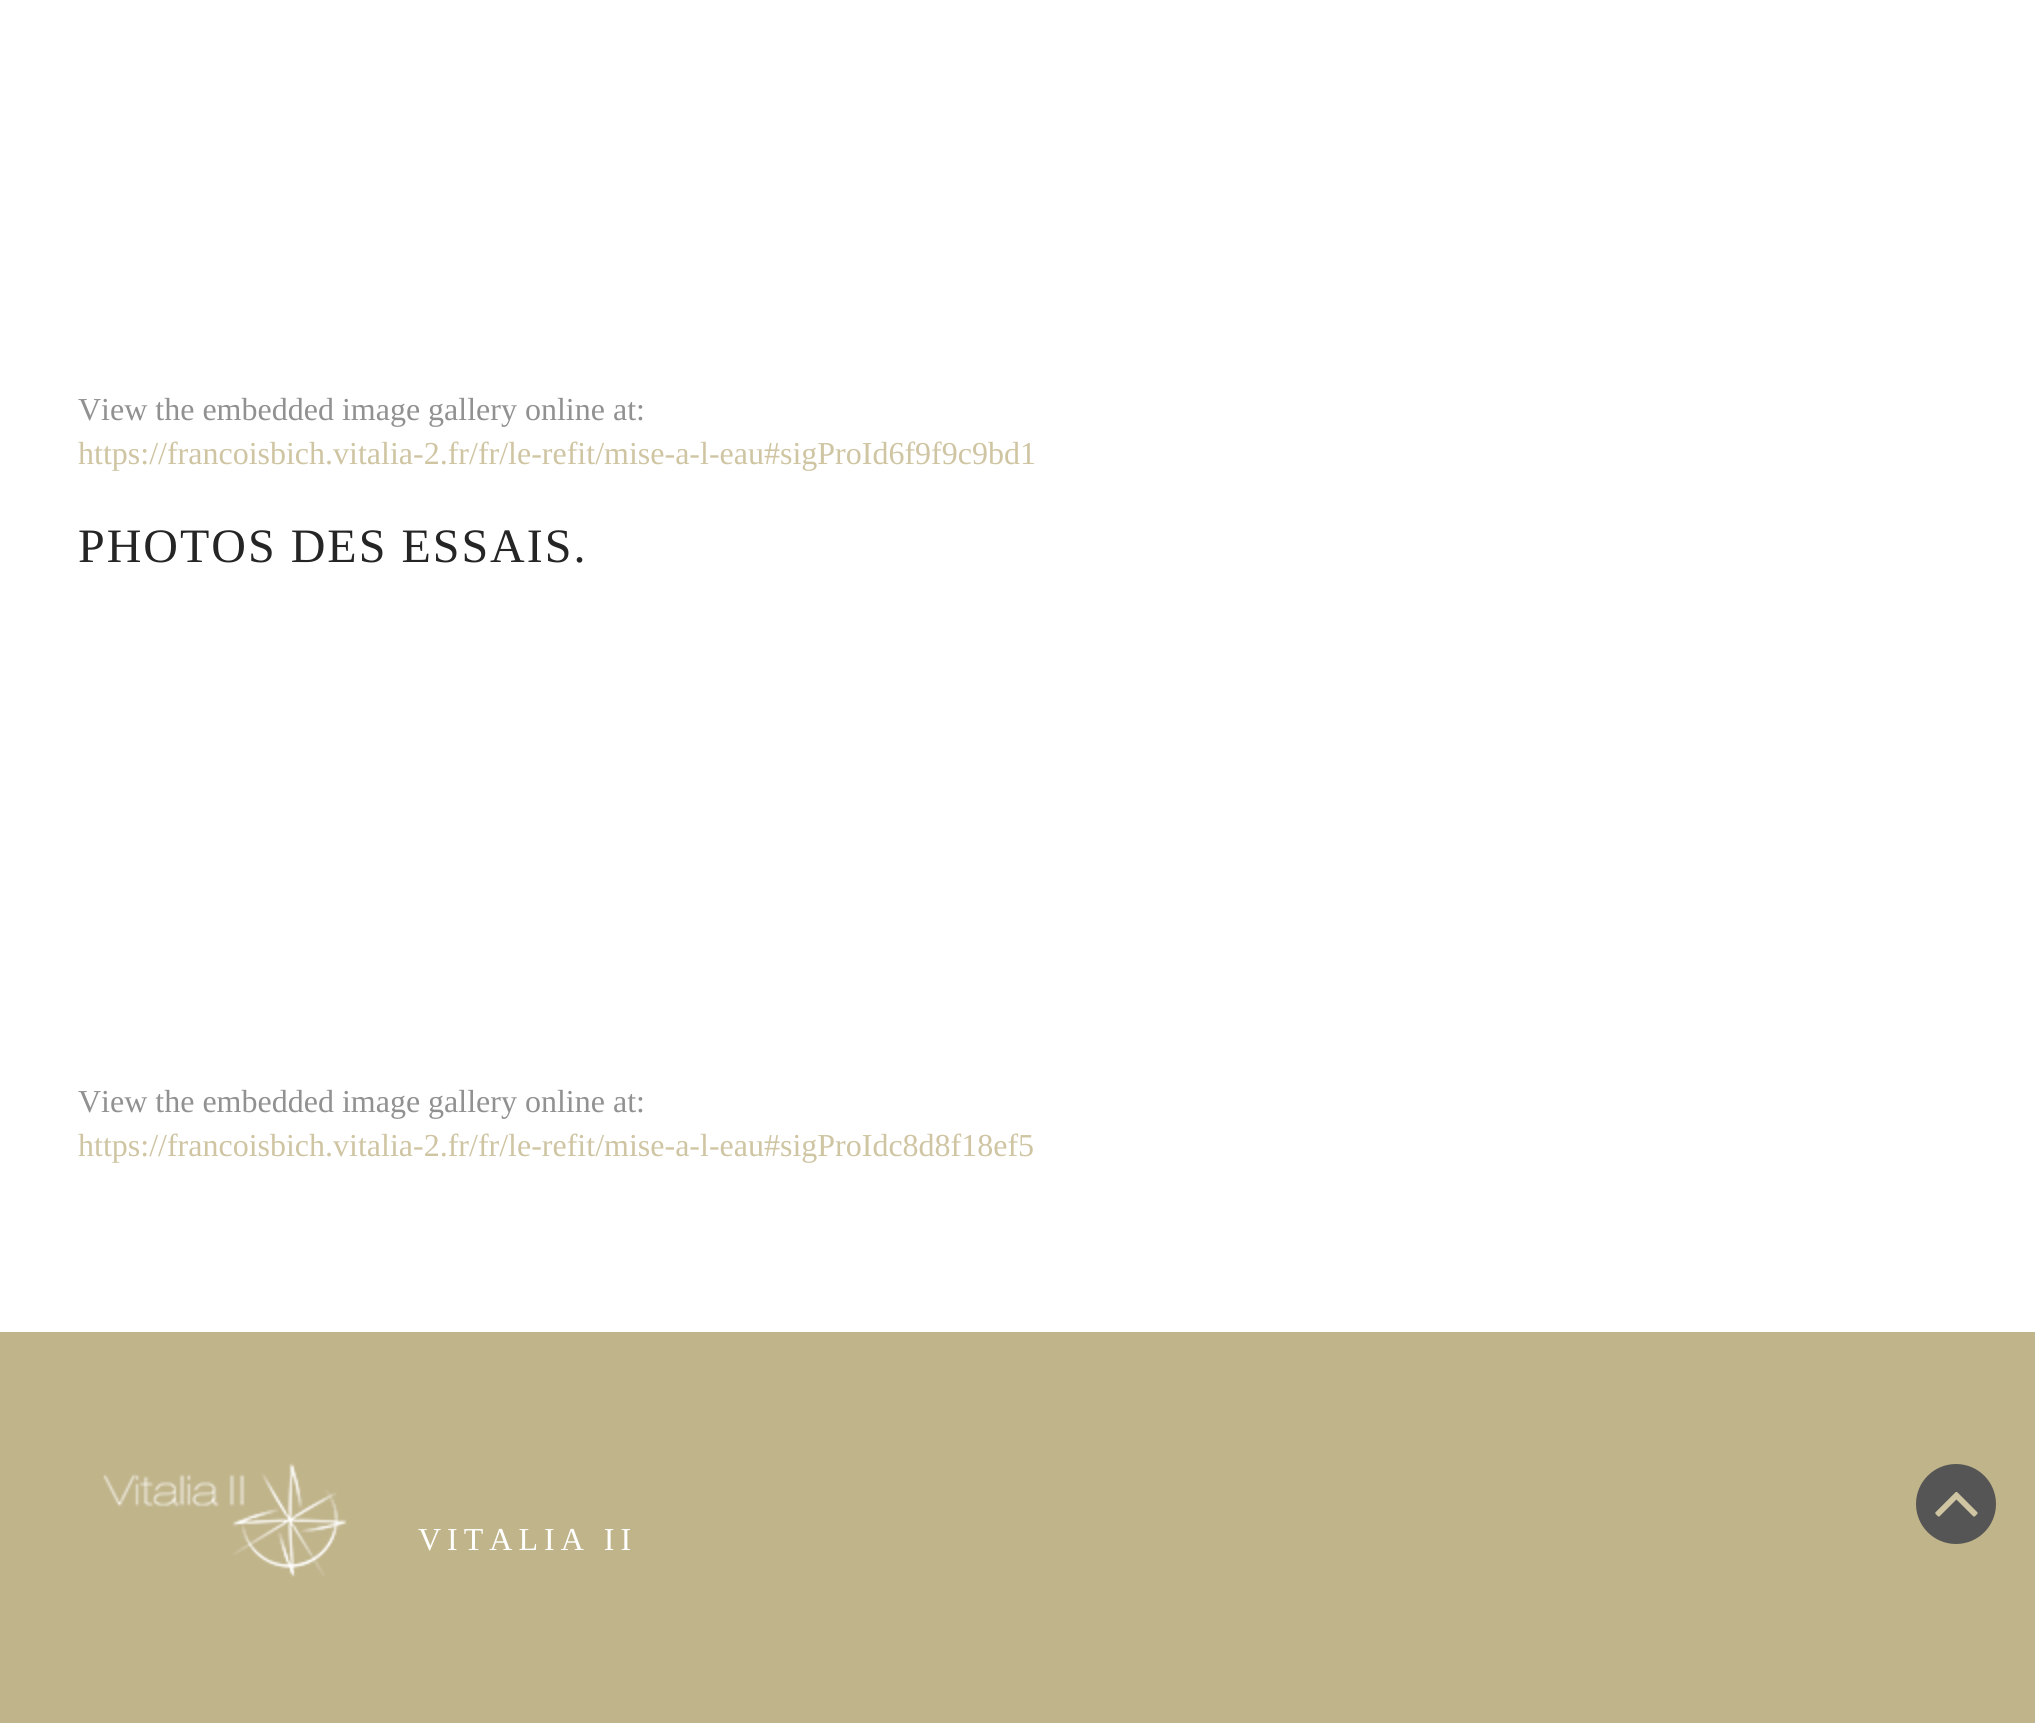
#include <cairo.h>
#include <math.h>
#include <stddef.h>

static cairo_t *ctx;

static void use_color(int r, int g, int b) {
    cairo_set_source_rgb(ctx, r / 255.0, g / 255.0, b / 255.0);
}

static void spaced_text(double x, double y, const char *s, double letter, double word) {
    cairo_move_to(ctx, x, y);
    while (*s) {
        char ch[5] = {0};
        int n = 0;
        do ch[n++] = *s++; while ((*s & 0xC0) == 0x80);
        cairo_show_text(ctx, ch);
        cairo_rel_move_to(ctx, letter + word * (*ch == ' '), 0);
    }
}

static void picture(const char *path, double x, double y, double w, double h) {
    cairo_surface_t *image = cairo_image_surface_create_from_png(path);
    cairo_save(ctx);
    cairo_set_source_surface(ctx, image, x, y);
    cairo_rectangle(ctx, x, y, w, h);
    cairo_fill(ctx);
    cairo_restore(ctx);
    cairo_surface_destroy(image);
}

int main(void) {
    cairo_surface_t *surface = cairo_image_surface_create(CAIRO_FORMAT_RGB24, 2035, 1723);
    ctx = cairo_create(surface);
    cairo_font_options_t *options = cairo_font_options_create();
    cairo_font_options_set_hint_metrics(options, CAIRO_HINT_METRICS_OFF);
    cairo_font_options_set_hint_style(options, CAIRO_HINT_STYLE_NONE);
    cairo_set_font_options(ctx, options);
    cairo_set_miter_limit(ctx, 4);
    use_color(255, 255, 255);
    cairo_paint(ctx);
    cairo_select_font_face(ctx, "Liberation Serif", CAIRO_FONT_SLANT_NORMAL, CAIRO_FONT_WEIGHT_NORMAL);
    cairo_set_font_size(ctx, 32);
    use_color(145, 145, 145);
    cairo_move_to(ctx, 78, 420);
    cairo_show_text(ctx, "View the embedded image gallery online at:");
    use_color(207, 197, 163);
    cairo_move_to(ctx, 78, 464);
    cairo_show_text(ctx, "https://francoisbich.vitalia-2.fr/fr/le-refit/mise-a-l-eau#sigProId6f9f9c9bd1");
    cairo_set_font_size(ctx, 48);
    use_color(37, 37, 37);
    spaced_text(78, 562, "PHOTOS DES ESSAIS.", 2, 0);
    cairo_set_font_size(ctx, 32);
    use_color(145, 145, 145);
    cairo_move_to(ctx, 78, 1112);
    cairo_show_text(ctx, "View the embedded image gallery online at:");
    use_color(207, 197, 163);
    cairo_move_to(ctx, 78, 1156);
    cairo_show_text(ctx, "https://francoisbich.vitalia-2.fr/fr/le-refit/mise-a-l-eau#sigProIdc8d8f18ef5");
    use_color(192, 180, 139);
    cairo_rectangle(ctx, 0, 1332, 2035, 391);
    cairo_fill(ctx);
    picture("img1.png", 103, 1463, 244, 114);
    use_color(255, 255, 255);
    spaced_text(418, 1550, "VITALIA II", 6, 0);
    use_color(85, 85, 85);
    cairo_new_path(ctx);
    cairo_arc(ctx, 1956, 1504, 40, 0, 2 * M_PI);
    cairo_fill(ctx);
    picture("img2.png", 1935, 1491, 43, 26);
    cairo_surface_write_to_png(surface, "result.png");
    cairo_font_options_destroy(options);
    cairo_destroy(ctx);
    cairo_surface_destroy(surface);
    return 0;
}
